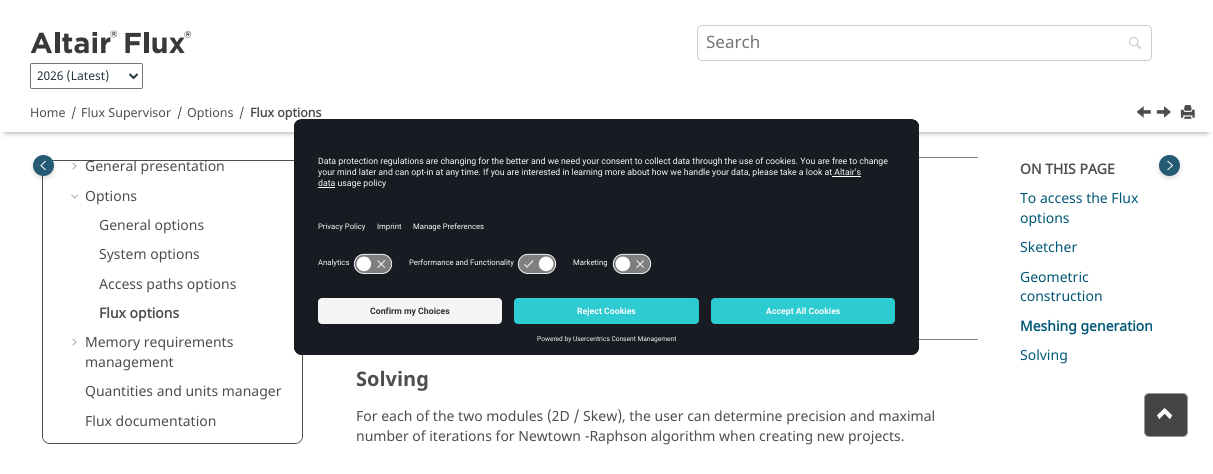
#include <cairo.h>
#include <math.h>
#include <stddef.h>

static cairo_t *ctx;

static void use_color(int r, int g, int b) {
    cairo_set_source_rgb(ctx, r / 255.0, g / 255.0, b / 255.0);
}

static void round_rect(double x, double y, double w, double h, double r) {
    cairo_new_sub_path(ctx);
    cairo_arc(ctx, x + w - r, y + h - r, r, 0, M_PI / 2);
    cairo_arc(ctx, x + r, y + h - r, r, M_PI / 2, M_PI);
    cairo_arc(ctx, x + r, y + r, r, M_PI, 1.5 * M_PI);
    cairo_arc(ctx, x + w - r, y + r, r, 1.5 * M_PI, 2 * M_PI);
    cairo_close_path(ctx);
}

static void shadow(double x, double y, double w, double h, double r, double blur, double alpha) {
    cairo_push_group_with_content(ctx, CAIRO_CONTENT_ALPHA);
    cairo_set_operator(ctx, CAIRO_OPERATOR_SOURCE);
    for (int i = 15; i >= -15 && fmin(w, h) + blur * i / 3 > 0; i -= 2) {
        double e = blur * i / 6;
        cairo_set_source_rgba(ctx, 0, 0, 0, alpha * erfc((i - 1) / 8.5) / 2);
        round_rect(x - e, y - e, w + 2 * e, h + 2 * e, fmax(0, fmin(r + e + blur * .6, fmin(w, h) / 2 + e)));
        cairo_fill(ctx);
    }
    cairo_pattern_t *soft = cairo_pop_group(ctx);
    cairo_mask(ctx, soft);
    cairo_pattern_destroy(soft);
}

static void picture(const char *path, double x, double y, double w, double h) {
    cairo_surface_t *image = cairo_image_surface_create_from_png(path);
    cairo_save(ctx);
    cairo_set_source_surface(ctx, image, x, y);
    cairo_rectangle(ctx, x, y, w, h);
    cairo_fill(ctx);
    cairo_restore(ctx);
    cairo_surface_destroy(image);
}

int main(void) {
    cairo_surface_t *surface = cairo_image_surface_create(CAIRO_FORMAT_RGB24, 1213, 474);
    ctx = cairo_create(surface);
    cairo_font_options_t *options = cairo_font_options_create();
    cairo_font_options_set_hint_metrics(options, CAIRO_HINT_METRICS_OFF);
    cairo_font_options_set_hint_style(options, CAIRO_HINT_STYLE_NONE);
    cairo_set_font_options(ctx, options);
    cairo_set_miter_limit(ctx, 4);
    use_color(255, 255, 255);
    cairo_paint(ctx);
    round_rect(697.5, 25.5, 454, 35, 4.5);
    use_color(204, 204, 204);
    cairo_set_line_width(ctx, 1);
    cairo_stroke(ctx);
    cairo_select_font_face(ctx, "Noto Sans", CAIRO_FONT_SLANT_NORMAL, CAIRO_FONT_WEIGHT_NORMAL);
    cairo_set_font_size(ctx, 17);
    use_color(117, 117, 117);
    cairo_move_to(ctx, 706, 48);
    cairo_show_text(ctx, "Search");
    picture("img1.png", 1129, 36, 12, 13);
    picture("img2.png", 30, 30, 162, 24);
    use_color(138, 138, 138);
    shadow(6, 98, 1201, 34, 0, 3, 1);
    round_rect(30.5, 63.5, 112, 25, 1.5);
    use_color(118, 118, 118);
    cairo_stroke(ctx);
    cairo_new_path(ctx);
    cairo_move_to(ctx, 129.5, 74);
    cairo_line_to(ctx, 133.5, 78);
    cairo_line_to(ctx, 137.5, 74);
    use_color(35, 52, 62);
    cairo_set_line_width(ctx, 2);
    cairo_stroke(ctx);
    cairo_set_font_size(ctx, 12);
    cairo_move_to(ctx, 37, 80);
    cairo_show_text(ctx, "2026 (Latest)");
    use_color(255, 255, 255);
    cairo_rectangle(ctx, 0, 92, 1213, 40);
    cairo_fill(ctx);
    cairo_set_font_size(ctx, 12.5);
    use_color(77, 77, 77);
    cairo_move_to(ctx, 30, 117);
    cairo_show_text(ctx, "Home");
    cairo_move_to(ctx, 71, 117);
    cairo_show_text(ctx, "/");
    cairo_move_to(ctx, 81, 117);
    cairo_show_text(ctx, "Flux Supervisor");
    cairo_move_to(ctx, 177, 117);
    cairo_show_text(ctx, "/");
    cairo_move_to(ctx, 187, 117);
    cairo_show_text(ctx, "Options");
    cairo_move_to(ctx, 239, 117);
    cairo_show_text(ctx, "/");
    cairo_select_font_face(ctx, "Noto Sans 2", CAIRO_FONT_SLANT_NORMAL, CAIRO_FONT_WEIGHT_BOLD);
    cairo_move_to(ctx, 250, 117);
    cairo_show_text(ctx, "Flux options");
    picture("img3.png", 1136, 106, 15, 12);
    picture("img4.png", 1156, 106, 15, 12);
    picture("img5.png", 1180, 105, 15, 14);
    round_rect(42.5, 160.5, 260, 283, 7.5);
    cairo_set_line_width(ctx, 1);
    cairo_stroke(ctx);
    use_color(255, 255, 255);
    round_rect(43, 161, 259, 282, 7);
    cairo_fill(ctx);
    picture("img6.png", 72, 162, 5, 8);
    cairo_save(ctx);
    round_rect(43, 161, 259, 282, 3);
    cairo_clip(ctx);
    cairo_select_font_face(ctx, "Noto Sans", CAIRO_FONT_SLANT_NORMAL, CAIRO_FONT_WEIGHT_NORMAL);
    cairo_set_font_size(ctx, 14);
    use_color(77, 77, 77);
    cairo_move_to(ctx, 85, 171);
    cairo_show_text(ctx, "General presentation");
    cairo_restore(ctx);
    picture("img7.png", 71, 194, 7, 5);
    cairo_select_font_face(ctx, "Noto Sans", CAIRO_FONT_SLANT_NORMAL, CAIRO_FONT_WEIGHT_NORMAL);
    cairo_set_font_size(ctx, 14);
    use_color(77, 77, 77);
    cairo_move_to(ctx, 85, 201);
    cairo_show_text(ctx, "Options");
    cairo_move_to(ctx, 99, 230);
    cairo_show_text(ctx, "General options");
    cairo_move_to(ctx, 99, 259);
    cairo_show_text(ctx, "System options");
    cairo_move_to(ctx, 99, 289);
    cairo_show_text(ctx, "Access paths options");
    cairo_select_font_face(ctx, "Noto Sans 2", CAIRO_FONT_SLANT_NORMAL, CAIRO_FONT_WEIGHT_BOLD);
    cairo_move_to(ctx, 99, 318);
    cairo_show_text(ctx, "Flux options");
    picture("img6.png", 72, 338, 5, 8);
    cairo_select_font_face(ctx, "Noto Sans", CAIRO_FONT_SLANT_NORMAL, CAIRO_FONT_WEIGHT_NORMAL);
    cairo_move_to(ctx, 85, 347);
    cairo_show_text(ctx, "Memory requirements");
    cairo_move_to(ctx, 85, 367);
    cairo_show_text(ctx, "management");
    cairo_move_to(ctx, 85, 396);
    cairo_show_text(ctx, "Quantities and units manager");
    cairo_move_to(ctx, 85, 426);
    cairo_show_text(ctx, "Flux documentation");
    cairo_select_font_face(ctx, "Noto Sans 2", CAIRO_FONT_SLANT_NORMAL, CAIRO_FONT_WEIGHT_BOLD);
    cairo_move_to(ctx, 1020, 174);
    cairo_show_text(ctx, "ON THIS PAGE");
    cairo_select_font_face(ctx, "Noto Sans", CAIRO_FONT_SLANT_NORMAL, CAIRO_FONT_WEIGHT_NORMAL);
    use_color(0, 87, 118);
    cairo_move_to(ctx, 1020, 203);
    cairo_show_text(ctx, "To access the Flux");
    cairo_move_to(ctx, 1020, 223);
    cairo_show_text(ctx, "options");
    cairo_move_to(ctx, 1020, 252);
    cairo_show_text(ctx, "Sketcher");
    cairo_move_to(ctx, 1020, 282);
    cairo_show_text(ctx, "Geometric");
    cairo_move_to(ctx, 1020, 301);
    cairo_show_text(ctx, "construction");
    cairo_select_font_face(ctx, "Noto Sans 2", CAIRO_FONT_SLANT_NORMAL, CAIRO_FONT_WEIGHT_BOLD);
    cairo_move_to(ctx, 1020, 331);
    cairo_show_text(ctx, "Meshing generation");
    cairo_select_font_face(ctx, "Noto Sans", CAIRO_FONT_SLANT_NORMAL, CAIRO_FONT_WEIGHT_NORMAL);
    cairo_move_to(ctx, 1020, 360);
    cairo_show_text(ctx, "Solving");
    use_color(0, 0, 0);
    shadow(33, 157, 21, 21, 10.5, 2.5, 0.16);
    use_color(36, 90, 115);
    cairo_arc(ctx, 43.5, 165.5, 10.5, 0, 2 * M_PI);
    cairo_fill(ctx);
    cairo_save(ctx);
    cairo_rectangle(ctx, 40, 161, 7, 9);
    cairo_clip(ctx);
    cairo_new_path(ctx);
    cairo_move_to(ctx, 46.5, 160);
    cairo_line_to(ctx, 52, 165.5);
    cairo_line_to(ctx, 46.5, 171);
    cairo_line_to(ctx, 41, 165.5);
    cairo_close_path(ctx);
    use_color(255, 255, 255);
    cairo_stroke(ctx);
    cairo_restore(ctx);
    use_color(0, 0, 0);
    shadow(1159, 157, 21, 21, 10.5, 2.5, 0.16);
    use_color(36, 90, 115);
    cairo_arc(ctx, 1169.5, 165.5, 10.5, 0, 2 * M_PI);
    cairo_fill(ctx);
    cairo_save(ctx);
    cairo_rectangle(ctx, 1166, 161, 7, 9);
    cairo_clip(ctx);
    cairo_new_path(ctx);
    cairo_move_to(ctx, 1166.5, 171);
    cairo_line_to(ctx, 1161, 165.5);
    cairo_line_to(ctx, 1166.5, 160);
    cairo_line_to(ctx, 1172.5, 165.5);
    cairo_close_path(ctx);
    use_color(255, 255, 255);
    cairo_stroke(ctx);
    cairo_restore(ctx);
    use_color(130, 130, 130);
    cairo_rectangle(ctx, 919, 157, 59, 1);
    cairo_fill(ctx);
    cairo_rectangle(ctx, 919, 339, 59, 1);
    cairo_fill(ctx);
    cairo_select_font_face(ctx, "Noto Sans", CAIRO_FONT_SLANT_NORMAL, CAIRO_FONT_WEIGHT_BOLD);
    cairo_set_font_size(ctx, 20);
    use_color(77, 77, 77);
    cairo_move_to(ctx, 356, 386);
    cairo_show_text(ctx, "Solving");
    cairo_select_font_face(ctx, "Noto Sans", CAIRO_FONT_SLANT_NORMAL, CAIRO_FONT_WEIGHT_NORMAL);
    cairo_set_font_size(ctx, 14);
    cairo_move_to(ctx, 356, 421);
    cairo_show_text(ctx, "For each of the two modules (2D / Skew), the user can determine precision and maximal");
    cairo_move_to(ctx, 356, 441);
    cairo_show_text(ctx, "number of iterations for Newtown -Raphson algorithm when creating new projects.");
    use_color(25, 27, 35);
    round_rect(294, 119, 625, 236, 8);
    cairo_fill(ctx);
    cairo_save(ctx);
    round_rect(294, 119, 625, 236, 8);
    cairo_clip(ctx);
    cairo_new_path(ctx);
    cairo_move_to(ctx, 302, 119);
    cairo_line_to(ctx, 911, 119);
    cairo_curve_to(ctx, 915.5, 119, 919, 122.5, 919, 127);
    cairo_line_to(ctx, 919, 290);
    cairo_line_to(ctx, 294, 290);
    cairo_line_to(ctx, 294, 127);
    cairo_curve_to(ctx, 294, 122.5, 297.5, 119, 302, 119);
    cairo_close_path(ctx);
    cairo_clip(ctx);
    cairo_rectangle(ctx, 294, 120, 625, 170);
    cairo_fill(ctx);
    cairo_rectangle(ctx, 294, 120, 625, 130);
    cairo_fill(ctx);
    cairo_restore(ctx);
    cairo_select_font_face(ctx, "Roboto", CAIRO_FONT_SLANT_NORMAL, CAIRO_FONT_WEIGHT_NORMAL);
    cairo_set_font_size(ctx, 8.75);
    use_color(250, 250, 250);
    cairo_move_to(ctx, 318, 164);
    cairo_show_text(ctx, "Data protection regulations are changing for the better and we need your consent to collect data through the use of cookies. You are free to change");
    cairo_move_to(ctx, 318, 175);
    cairo_show_text(ctx, "your mind later and can opt-in at any time. If you are interested in learning more about how we handle your data, please take a look at Altair’s");
    use_color(255, 255, 255);
    cairo_rectangle(ctx, 832, 176, 29, 1);
    cairo_fill(ctx);
    cairo_rectangle(ctx, 318, 187, 17, 1);
    cairo_fill(ctx);
    use_color(250, 250, 250);
    cairo_move_to(ctx, 318, 186);
    cairo_show_text(ctx, "data usage policy");
    cairo_set_font_size(ctx, 7.7);
    cairo_move_to(ctx, 318, 229);
    cairo_show_text(ctx, "Privacy Policy");
    cairo_move_to(ctx, 377, 229);
    cairo_show_text(ctx, "Imprint");
    cairo_move_to(ctx, 413, 229);
    cairo_show_text(ctx, "Manage Preferences");
    cairo_move_to(ctx, 318, 265);
    cairo_show_text(ctx, "Analytics");
    picture("img8.png", 353, 253, 40, 21);
    cairo_move_to(ctx, 409, 265);
    cairo_show_text(ctx, "Performance and Functionality");
    picture("img9.png", 517, 253, 40, 21);
    cairo_move_to(ctx, 573, 265);
    cairo_show_text(ctx, "Marketing");
    picture("img8.png", 612, 253, 40, 21);
    use_color(25, 27, 35);
    cairo_new_path(ctx);
    cairo_move_to(ctx, 294, 290);
    cairo_line_to(ctx, 919, 290);
    cairo_line_to(ctx, 919, 347);
    cairo_curve_to(ctx, 919, 351.5, 915.5, 355, 911, 355);
    cairo_line_to(ctx, 302, 355);
    cairo_curve_to(ctx, 297.5, 355, 294, 351.5, 294, 347);
    cairo_close_path(ctx);
    cairo_fill(ctx);
    use_color(245, 245, 245);
    round_rect(318, 298, 184, 26, 4);
    cairo_fill(ctx);
    cairo_select_font_face(ctx, "Roboto", CAIRO_FONT_SLANT_NORMAL, CAIRO_FONT_WEIGHT_BOLD);
    cairo_set_font_size(ctx, 8.75);
    use_color(48, 48, 48);
    cairo_move_to(ctx, 370, 314);
    cairo_show_text(ctx, "Confirm my Choices");
    use_color(45, 204, 211);
    round_rect(514, 298, 185, 26, 4);
    cairo_fill(ctx);
    use_color(250, 250, 250);
    cairo_move_to(ctx, 577, 314);
    cairo_show_text(ctx, "Reject Cookies");
    use_color(45, 204, 211);
    round_rect(711, 298, 184, 26, 4);
    cairo_fill(ctx);
    use_color(250, 250, 250);
    cairo_move_to(ctx, 766, 314);
    cairo_show_text(ctx, "Accept All Cookies");
    cairo_select_font_face(ctx, "Roboto", CAIRO_FONT_SLANT_NORMAL, CAIRO_FONT_WEIGHT_NORMAL);
    cairo_set_font_size(ctx, 6.6);
    cairo_move_to(ctx, 537, 341);
    cairo_show_text(ctx, "Powered by Usercentrics Consent Management");
    use_color(68, 68, 68);
    round_rect(1144.5, 393.5, 43, 43, 4.5);
    cairo_fill_preserve(ctx);
    use_color(153, 153, 153);
    cairo_stroke(ctx);
    picture("img10.png", 1157, 408, 16, 11);
    cairo_surface_write_to_png(surface, "result.png");
    cairo_font_options_destroy(options);
    cairo_destroy(ctx);
    cairo_surface_destroy(surface);
    return 0;
}
